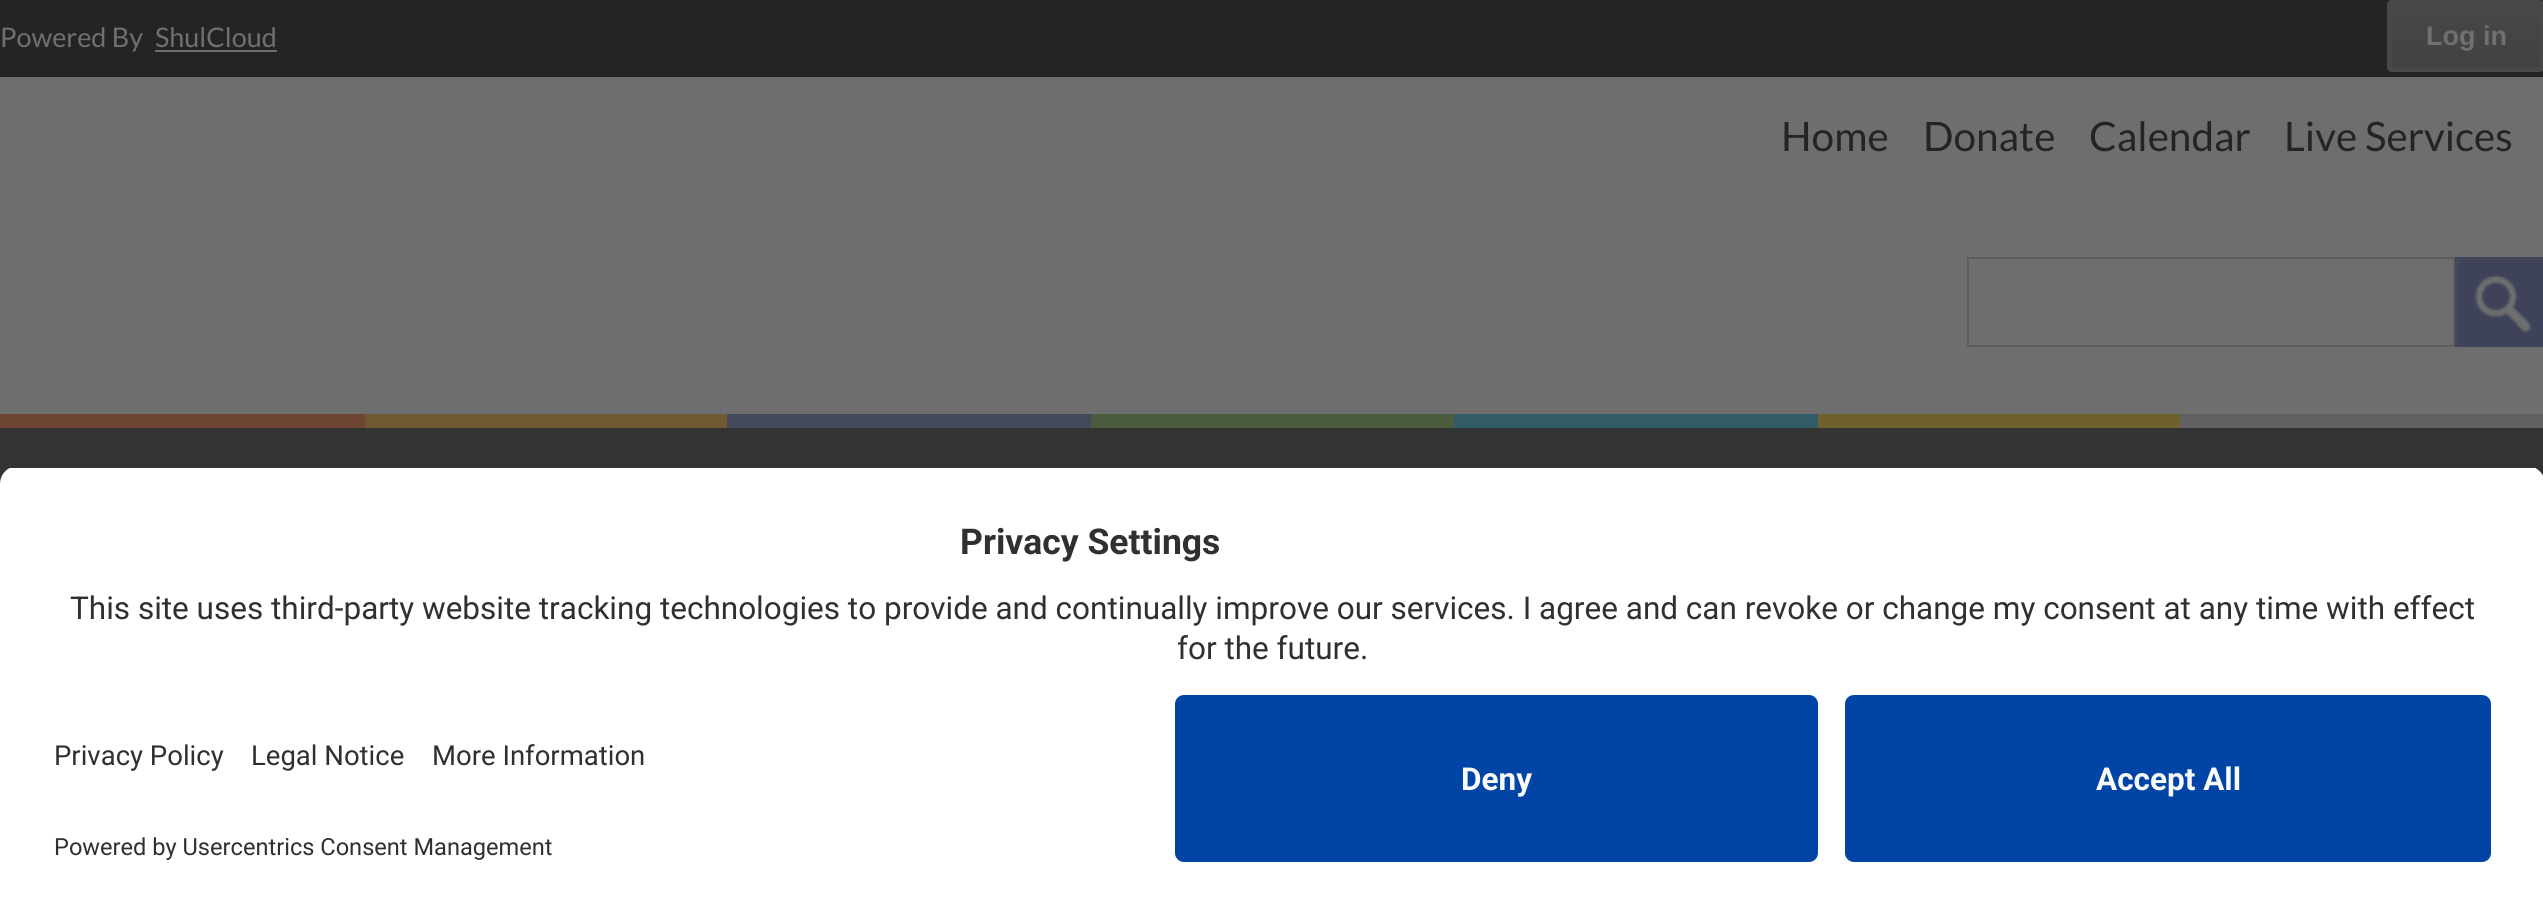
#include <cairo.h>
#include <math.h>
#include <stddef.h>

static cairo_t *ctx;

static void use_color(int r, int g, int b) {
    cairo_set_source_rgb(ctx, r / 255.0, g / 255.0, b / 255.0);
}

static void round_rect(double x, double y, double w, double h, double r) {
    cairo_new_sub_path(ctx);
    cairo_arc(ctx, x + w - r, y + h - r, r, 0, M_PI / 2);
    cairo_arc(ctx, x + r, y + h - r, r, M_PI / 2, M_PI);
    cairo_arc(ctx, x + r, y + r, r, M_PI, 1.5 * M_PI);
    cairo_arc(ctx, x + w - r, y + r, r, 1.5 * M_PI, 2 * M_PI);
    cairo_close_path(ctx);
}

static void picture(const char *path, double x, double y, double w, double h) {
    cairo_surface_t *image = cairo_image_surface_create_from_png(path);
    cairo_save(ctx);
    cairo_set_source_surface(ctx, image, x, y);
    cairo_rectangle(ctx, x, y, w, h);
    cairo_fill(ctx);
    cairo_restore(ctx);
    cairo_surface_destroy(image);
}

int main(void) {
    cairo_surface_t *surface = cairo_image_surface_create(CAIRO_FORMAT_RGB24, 2543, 915);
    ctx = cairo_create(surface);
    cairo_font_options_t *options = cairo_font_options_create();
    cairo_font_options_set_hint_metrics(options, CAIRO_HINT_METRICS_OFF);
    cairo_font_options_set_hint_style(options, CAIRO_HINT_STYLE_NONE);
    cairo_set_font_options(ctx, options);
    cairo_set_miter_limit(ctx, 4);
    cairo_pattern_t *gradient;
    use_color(36, 36, 36);
    cairo_paint(ctx);
    cairo_select_font_face(ctx, "Lato", CAIRO_FONT_SLANT_NORMAL, CAIRO_FONT_WEIGHT_NORMAL);
    cairo_set_font_size(ctx, 27);
    use_color(112, 112, 112);
    cairo_move_to(ctx, 0, 47);
    cairo_show_text(ctx, "Powered By");
    cairo_move_to(ctx, 155, 47);
    cairo_show_text(ctx, "ShulCloud");
    cairo_rectangle(ctx, 155, 50, 122, 2);
    cairo_fill(ctx);
    gradient = cairo_pattern_create_linear(2466, 4.5, 2466, 68);
    cairo_pattern_add_color_stop_rgba(gradient, 0.05, 0.275, 0.282, 0.282, 1);
    cairo_pattern_add_color_stop_rgba(gradient, 1, 0.251, 0.259, 0.263, 1);
    cairo_set_source(ctx, gradient);
    cairo_pattern_destroy(gradient);
    cairo_rectangle(ctx, 2387, 5, 153, 63);
    cairo_fill(ctx);
    round_rect(2389.5, 2.5, 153, 67, 2.5);
    use_color(70, 72, 74);
    cairo_set_line_width(ctx, 5);
    cairo_stroke(ctx);
    cairo_select_font_face(ctx, "Liberation Sans", CAIRO_FONT_SLANT_NORMAL, CAIRO_FONT_WEIGHT_BOLD);
    use_color(112, 112, 112);
    cairo_move_to(ctx, 2426, 45);
    cairo_show_text(ctx, "Log in");
    use_color(110, 110, 110);
    cairo_rectangle(ctx, 0, 77, 2543, 337);
    cairo_fill(ctx);
    cairo_select_font_face(ctx, "Lato", CAIRO_FONT_SLANT_NORMAL, CAIRO_FONT_WEIGHT_NORMAL);
    cairo_set_font_size(ctx, 40.5);
    use_color(36, 36, 36);
    cairo_move_to(ctx, 1781, 151);
    cairo_show_text(ctx, "Home");
    cairo_move_to(ctx, 1923, 151);
    cairo_show_text(ctx, "Donate");
    cairo_move_to(ctx, 2089, 151);
    cairo_show_text(ctx, "Calendar");
    cairo_move_to(ctx, 2284, 151);
    cairo_show_text(ctx, "Live Services");
    cairo_rectangle(ctx, 1968, 258, 486, 88);
    use_color(95, 94, 94);
    cairo_set_line_width(ctx, 2);
    cairo_stroke(ctx);
    picture("img1.png", 2454, 257, 89, 90);
    cairo_rectangle(ctx, 2456, 258, 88, 88);
    use_color(63, 68, 89);
    cairo_stroke(ctx);
    use_color(51, 51, 51);
    cairo_rectangle(ctx, 0, 428, 2543, 56);
    cairo_fill(ctx);
    use_color(109, 69, 50);
    cairo_rectangle(ctx, 0, 414, 365, 14);
    cairo_fill(ctx);
    use_color(111, 89, 51);
    cairo_rectangle(ctx, 365, 414, 362, 14);
    cairo_fill(ctx);
    use_color(69, 73, 92);
    cairo_rectangle(ctx, 727, 414, 364, 14);
    cairo_fill(ctx);
    use_color(74, 92, 61);
    cairo_rectangle(ctx, 1091, 414, 363, 14);
    cairo_fill(ctx);
    use_color(48, 91, 103);
    cairo_rectangle(ctx, 1454, 414, 364, 14);
    cairo_fill(ctx);
    use_color(110, 97, 45);
    cairo_rectangle(ctx, 1818, 414, 362, 14);
    cairo_fill(ctx);
    use_color(97, 97, 97);
    cairo_rectangle(ctx, 2180, 414, 363, 14);
    cairo_fill(ctx);
    cairo_save(ctx);
    cairo_new_path(ctx);
    cairo_move_to(ctx, 18, 466);
    cairo_line_to(ctx, 2527, 466);
    cairo_curve_to(ctx, 2537, 466, 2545, 474, 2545, 484);
    cairo_line_to(ctx, 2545, 677);
    cairo_line_to(ctx, 0, 677);
    cairo_line_to(ctx, 0, 484);
    cairo_curve_to(ctx, 0, 474, 8, 466, 18, 466);
    cairo_close_path(ctx);
    cairo_clip(ctx);
    use_color(255, 255, 255);
    cairo_rectangle(ctx, 0, 468, 2543, 209);
    cairo_fill(ctx);
    cairo_restore(ctx);
    cairo_select_font_face(ctx, "Roboto", CAIRO_FONT_SLANT_NORMAL, CAIRO_FONT_WEIGHT_BOLD);
    cairo_set_font_size(ctx, 35.5);
    use_color(48, 48, 48);
    cairo_move_to(ctx, 960, 554);
    cairo_show_text(ctx, "Privacy Settings");
    cairo_select_font_face(ctx, "Roboto", CAIRO_FONT_SLANT_NORMAL, CAIRO_FONT_WEIGHT_NORMAL);
    cairo_set_font_size(ctx, 31.5);
    cairo_move_to(ctx, 70, 619);
    cairo_show_text(ctx, "This site uses third-party website tracking technologies to provide and continually improve our services. I agree and can revoke or change my consent at any time with effect");
    cairo_move_to(ctx, 1177, 659);
    cairo_show_text(ctx, "for the future.");
    use_color(255, 255, 255);
    cairo_rectangle(ctx, 0, 677, 2543, 238);
    cairo_fill(ctx);
    cairo_set_font_size(ctx, 27.5);
    use_color(48, 48, 48);
    cairo_move_to(ctx, 54, 765);
    cairo_show_text(ctx, "Privacy Policy");
    cairo_move_to(ctx, 251, 765);
    cairo_show_text(ctx, "Legal Notice");
    cairo_move_to(ctx, 432, 765);
    cairo_show_text(ctx, "More Information");
    cairo_set_font_size(ctx, 23.6);
    cairo_move_to(ctx, 54, 855);
    cairo_show_text(ctx, "Powered by Usercentrics Consent Management");
    use_color(0, 69, 165);
    round_rect(1175, 695, 643, 167, 9);
    cairo_fill(ctx);
    cairo_select_font_face(ctx, "Roboto", CAIRO_FONT_SLANT_NORMAL, CAIRO_FONT_WEIGHT_BOLD);
    cairo_set_font_size(ctx, 31.5);
    use_color(250, 250, 250);
    cairo_move_to(ctx, 1461, 790);
    cairo_show_text(ctx, "Deny");
    use_color(0, 69, 165);
    round_rect(1845, 695, 646, 167, 9);
    cairo_fill(ctx);
    use_color(250, 250, 250);
    cairo_move_to(ctx, 2096, 790);
    cairo_show_text(ctx, "Accept All");
    cairo_surface_write_to_png(surface, "result.png");
    cairo_font_options_destroy(options);
    cairo_destroy(ctx);
    cairo_surface_destroy(surface);
    return 0;
}
